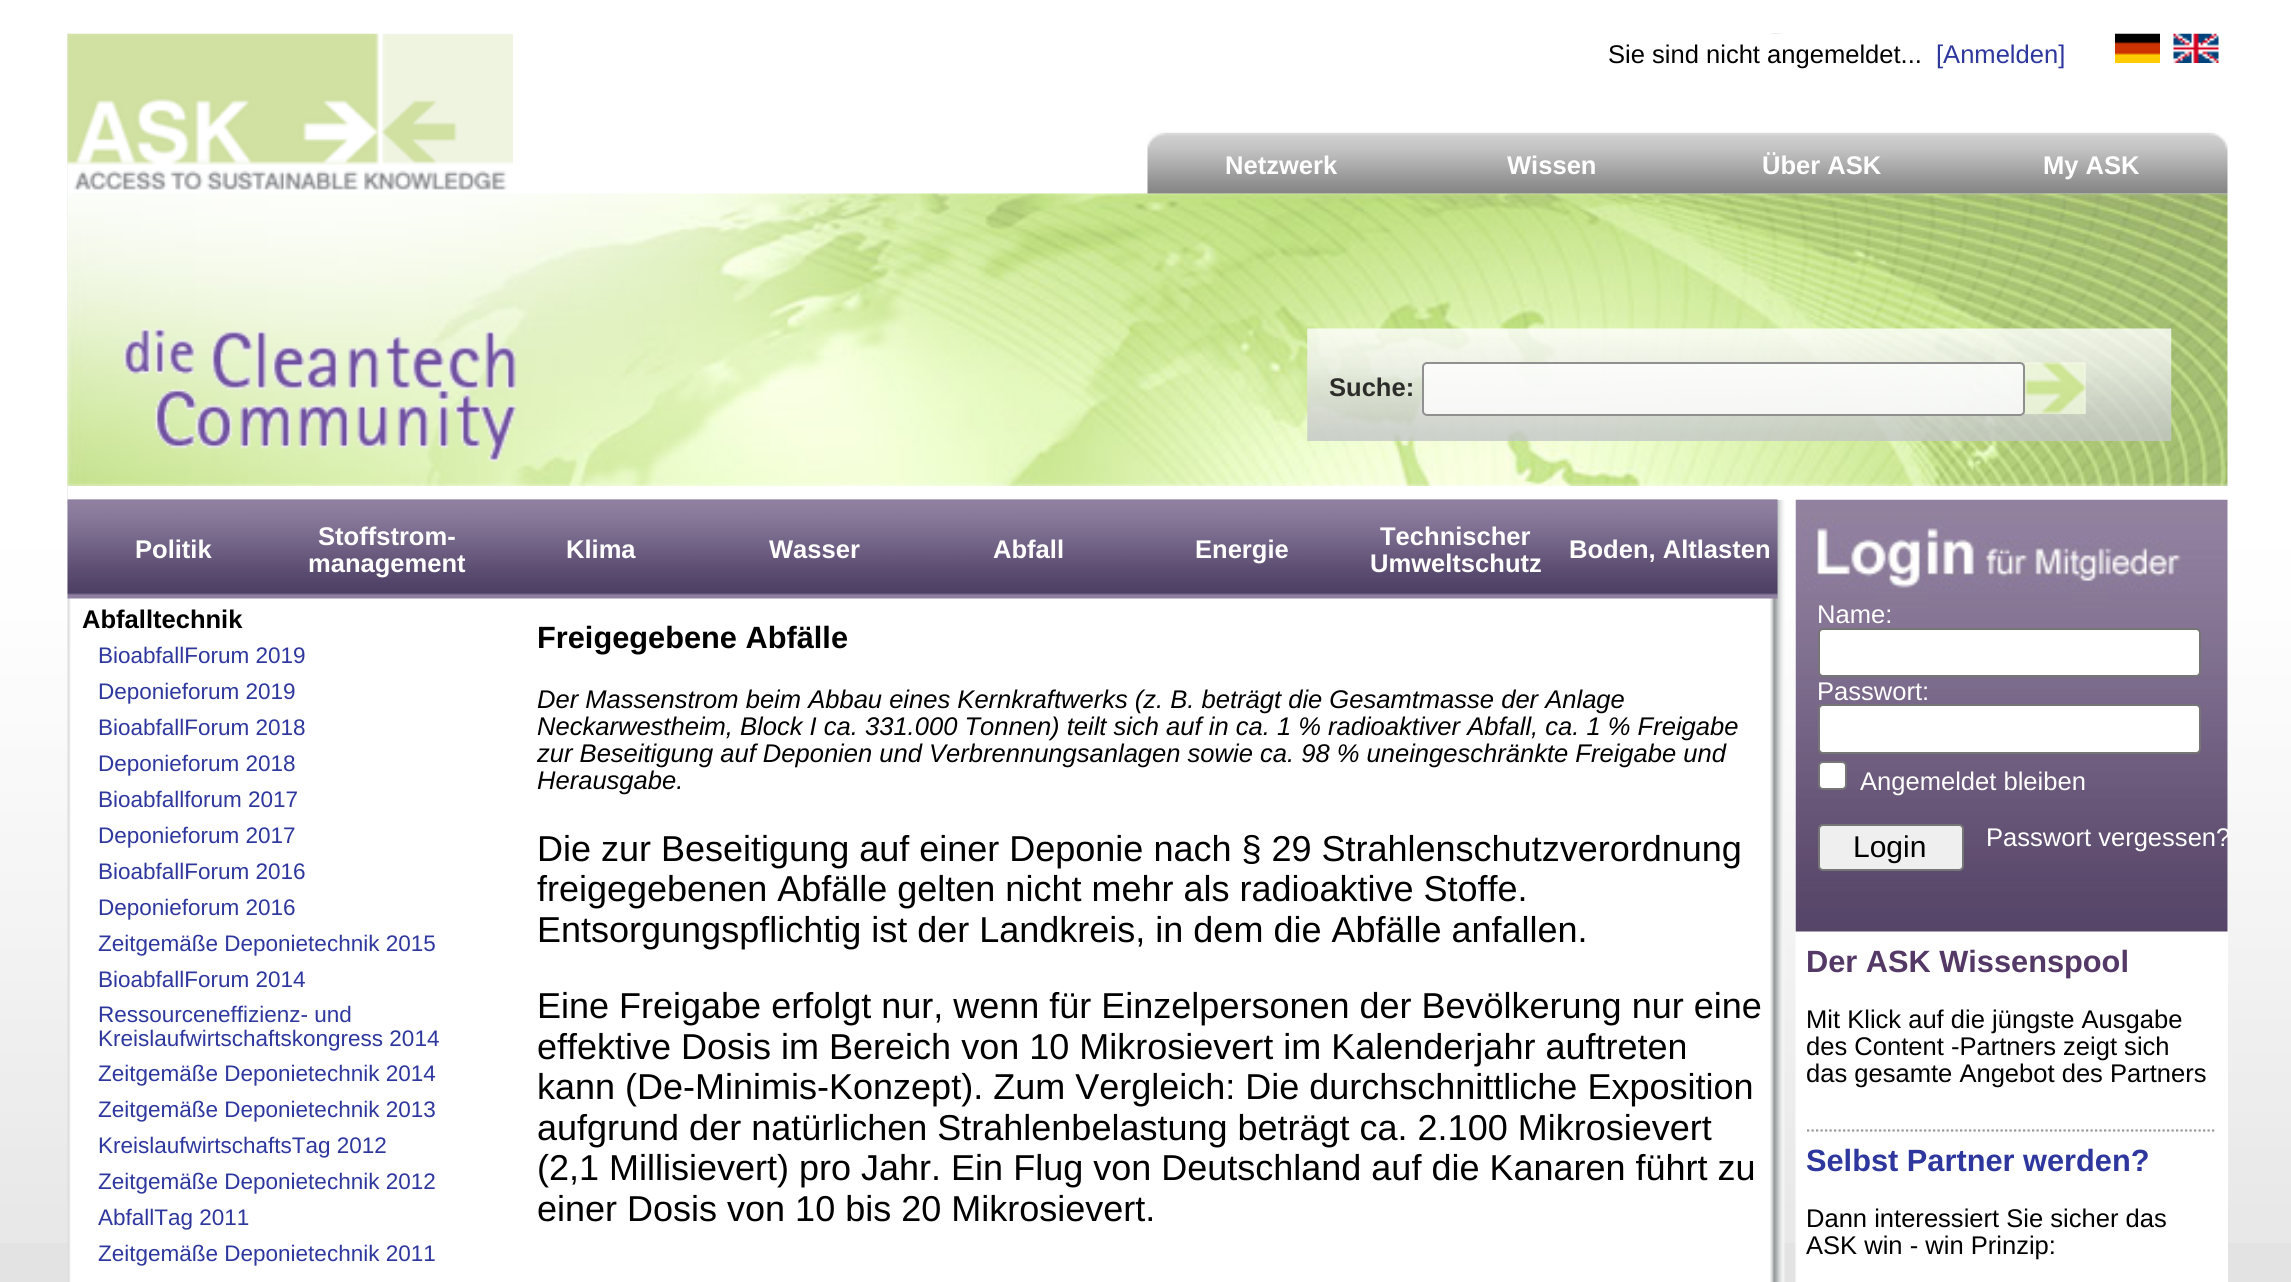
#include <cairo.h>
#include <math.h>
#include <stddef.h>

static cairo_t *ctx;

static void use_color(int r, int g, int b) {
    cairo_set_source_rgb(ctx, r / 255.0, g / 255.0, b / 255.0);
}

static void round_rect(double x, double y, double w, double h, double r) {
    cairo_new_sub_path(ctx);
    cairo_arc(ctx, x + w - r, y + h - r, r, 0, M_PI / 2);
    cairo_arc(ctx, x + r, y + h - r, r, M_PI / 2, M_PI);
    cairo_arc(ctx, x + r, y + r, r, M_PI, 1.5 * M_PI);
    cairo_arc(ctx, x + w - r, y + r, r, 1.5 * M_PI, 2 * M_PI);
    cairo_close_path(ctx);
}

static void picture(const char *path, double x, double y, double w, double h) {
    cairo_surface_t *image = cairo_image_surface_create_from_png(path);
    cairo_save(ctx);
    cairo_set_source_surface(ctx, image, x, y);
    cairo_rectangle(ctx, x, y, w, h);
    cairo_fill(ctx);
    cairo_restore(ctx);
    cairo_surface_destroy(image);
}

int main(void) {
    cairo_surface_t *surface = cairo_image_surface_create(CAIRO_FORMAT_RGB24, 2291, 1282);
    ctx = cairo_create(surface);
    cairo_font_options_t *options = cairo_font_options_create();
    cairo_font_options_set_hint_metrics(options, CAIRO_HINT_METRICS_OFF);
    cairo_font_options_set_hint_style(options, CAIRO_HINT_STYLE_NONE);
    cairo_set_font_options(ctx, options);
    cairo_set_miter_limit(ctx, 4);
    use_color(227, 227, 227);
    cairo_paint(ctx);
    picture("img1.png", 0, 0, 2291, 1243);
    picture("img2.png", 67, 33, 2161, 1249);
    use_color(255, 255, 255);
    cairo_rectangle(ctx, 68, 34, 1717, 466);
    cairo_fill(ctx);
    picture("img3.png", 67, 33, 446, 160);
    cairo_select_font_face(ctx, "Liberation Sans", CAIRO_FONT_SLANT_NORMAL, CAIRO_FONT_WEIGHT_NORMAL);
    cairo_set_font_size(ctx, 25.55);
    use_color(0, 0, 0);
    cairo_move_to(ctx, 1608, 63);
    cairo_show_text(ctx, "Sie sind nicht angemeldet...");
    use_color(46, 55, 157);
    cairo_move_to(ctx, 1936, 63);
    cairo_show_text(ctx, "[Anmelden]");
    picture("img4.png", 2115, 33, 45, 30);
    picture("img5.png", 2173, 33, 46, 30);
    picture("img7.png", 67, 193, 2161, 293);
    picture("img6.png", 1147, 132, 1081, 62);
    cairo_select_font_face(ctx, "Liberation Sans", CAIRO_FONT_SLANT_NORMAL, CAIRO_FONT_WEIGHT_BOLD);
    use_color(255, 255, 255);
    cairo_move_to(ctx, 1225, 174);
    cairo_show_text(ctx, "Netzwerk");
    cairo_move_to(ctx, 1507, 174);
    cairo_show_text(ctx, "Wissen");
    cairo_move_to(ctx, 1762, 174);
    cairo_show_text(ctx, "Über ASK");
    cairo_move_to(ctx, 2043, 174);
    cairo_show_text(ctx, "My ASK");
    picture("img8.png", 123, 328, 393, 134);
    picture("img9.png", 1307, 328, 865, 113);
    use_color(44, 45, 42);
    cairo_move_to(ctx, 1329, 396);
    cairo_show_text(ctx, "Suche:");
    cairo_set_source_rgba(ctx, 1, 1, 1, 0.8);
    round_rect(1422, 362, 603, 54, 5);
    cairo_fill(ctx);
    round_rect(1423, 363, 601, 52, 4);
    cairo_set_source_rgba(ctx, 0.463, 0.463, 0.463, 0.8);
    cairo_stroke(ctx);
    picture("img10.png", 2025, 362, 61, 52);
    picture("img11.png", 67, 499, 1711, 100);
    use_color(255, 255, 255);
    cairo_move_to(ctx, 135, 558);
    cairo_show_text(ctx, "Politik");
    cairo_move_to(ctx, 318, 545);
    cairo_show_text(ctx, "Stoffstrom-");
    cairo_move_to(ctx, 308, 572);
    cairo_show_text(ctx, "management");
    cairo_move_to(ctx, 566, 558);
    cairo_show_text(ctx, "Klima");
    cairo_move_to(ctx, 769, 558);
    cairo_show_text(ctx, "Wasser");
    cairo_move_to(ctx, 993, 558);
    cairo_show_text(ctx, "Abfall");
    cairo_move_to(ctx, 1195, 558);
    cairo_show_text(ctx, "Energie");
    cairo_move_to(ctx, 1380, 545);
    cairo_show_text(ctx, "Technischer");
    cairo_move_to(ctx, 1370, 572);
    cairo_show_text(ctx, "Umweltschutz");
    cairo_move_to(ctx, 1569, 558);
    cairo_show_text(ctx, "Boden, Altlasten");
    use_color(0, 0, 0);
    cairo_move_to(ctx, 82, 628);
    cairo_show_text(ctx, "Abfalltechnik");
    cairo_select_font_face(ctx, "Liberation Sans", CAIRO_FONT_SLANT_NORMAL, CAIRO_FONT_WEIGHT_NORMAL);
    cairo_set_font_size(ctx, 22.5);
    use_color(46, 55, 157);
    cairo_move_to(ctx, 98, 663);
    cairo_show_text(ctx, "BioabfallForum 2019");
    cairo_move_to(ctx, 98, 699);
    cairo_show_text(ctx, "Deponieforum 2019");
    cairo_move_to(ctx, 98, 735);
    cairo_show_text(ctx, "BioabfallForum 2018");
    cairo_move_to(ctx, 98, 771);
    cairo_show_text(ctx, "Deponieforum 2018");
    cairo_move_to(ctx, 98, 807);
    cairo_show_text(ctx, "Bioabfallforum 2017");
    cairo_move_to(ctx, 98, 843);
    cairo_show_text(ctx, "Deponieforum 2017");
    cairo_move_to(ctx, 98, 879);
    cairo_show_text(ctx, "BioabfallForum 2016");
    cairo_move_to(ctx, 98, 915);
    cairo_show_text(ctx, "Deponieforum 2016");
    cairo_move_to(ctx, 98, 951);
    cairo_show_text(ctx, "Zeitgemäße Deponietechnik 2015");
    cairo_move_to(ctx, 98, 987);
    cairo_show_text(ctx, "BioabfallForum 2014");
    cairo_move_to(ctx, 98, 1022);
    cairo_show_text(ctx, "Ressourceneffizienz- und");
    cairo_move_to(ctx, 98, 1046);
    cairo_show_text(ctx, "Kreislaufwirtschaftskongress 2014");
    cairo_move_to(ctx, 98, 1081);
    cairo_show_text(ctx, "Zeitgemäße Deponietechnik 2014");
    cairo_move_to(ctx, 98, 1117);
    cairo_show_text(ctx, "Zeitgemäße Deponietechnik 2013");
    cairo_move_to(ctx, 98, 1153);
    cairo_show_text(ctx, "KreislaufwirtschaftsTag 2012");
    cairo_move_to(ctx, 98, 1189);
    cairo_show_text(ctx, "Zeitgemäße Deponietechnik 2012");
    cairo_move_to(ctx, 98, 1225);
    cairo_show_text(ctx, "AbfallTag 2011");
    cairo_move_to(ctx, 98, 1261);
    cairo_show_text(ctx, "Zeitgemäße Deponietechnik 2011");
    cairo_select_font_face(ctx, "Liberation Sans", CAIRO_FONT_SLANT_NORMAL, CAIRO_FONT_WEIGHT_BOLD);
    cairo_set_font_size(ctx, 30.75);
    use_color(0, 0, 0);
    cairo_move_to(ctx, 537, 648);
    cairo_show_text(ctx, "Freigegebene Abfälle");
    cairo_select_font_face(ctx, "Liberation Sans", CAIRO_FONT_SLANT_ITALIC, CAIRO_FONT_WEIGHT_NORMAL);
    cairo_set_font_size(ctx, 25.55);
    cairo_move_to(ctx, 537, 708);
    cairo_show_text(ctx, "Der Massenstrom beim Abbau eines Kernkraftwerks (z. B. beträgt die Gesamtmasse der Anlage");
    cairo_move_to(ctx, 537, 735);
    cairo_show_text(ctx, "Neckarwestheim, Block I ca. 331.000 Tonnen) teilt sich auf in ca. 1 % radioaktiver Abfall, ca. 1 % Freigabe");
    cairo_move_to(ctx, 537, 762);
    cairo_show_text(ctx, "zur Beseitigung auf Deponien und Verbrennungsanlagen sowie ca. 98 % uneingeschränkte Freigabe und");
    cairo_move_to(ctx, 537, 789);
    cairo_show_text(ctx, "Herausgabe.");
    cairo_select_font_face(ctx, "Liberation Sans", CAIRO_FONT_SLANT_NORMAL, CAIRO_FONT_WEIGHT_NORMAL);
    cairo_set_font_size(ctx, 36);
    cairo_move_to(ctx, 537, 861);
    cairo_show_text(ctx, "Die zur Beseitigung auf einer Deponie nach § 29 Strahlenschutzverordnung");
    cairo_move_to(ctx, 537, 901);
    cairo_show_text(ctx, "freigegebenen Abfälle gelten nicht mehr als radioaktive Stoffe.");
    cairo_move_to(ctx, 537, 942);
    cairo_show_text(ctx, "Entsorgungspflichtig ist der Landkreis, in dem die Abfälle anfallen.");
    cairo_move_to(ctx, 537, 1018);
    cairo_show_text(ctx, "Eine Freigabe erfolgt nur, wenn für Einzelpersonen der Bevölkerung nur eine");
    cairo_move_to(ctx, 537, 1059);
    cairo_show_text(ctx, "effektive Dosis im Bereich von 10 Mikrosievert im Kalenderjahr auftreten");
    cairo_move_to(ctx, 537, 1099);
    cairo_show_text(ctx, "kann (De-Minimis-Konzept). Zum Vergleich: Die durchschnittliche Exposition");
    cairo_move_to(ctx, 537, 1140);
    cairo_show_text(ctx, "aufgrund der natürlichen Strahlenbelastung beträgt ca. 2.100 Mikrosievert");
    cairo_move_to(ctx, 537, 1180);
    cairo_show_text(ctx, "(2,1 Millisievert) pro Jahr. Ein Flug von Deutschland auf die Kanaren führt zu");
    cairo_move_to(ctx, 537, 1221);
    cairo_show_text(ctx, "einer Dosis von 10 bis 20 Mikrosievert.");
    use_color(255, 255, 255);
    cairo_rectangle(ctx, 2227, 746, 1, 536);
    cairo_fill(ctx);
    picture("img12.png", 1795, 499, 433, 433);
    cairo_set_font_size(ctx, 25.55);
    cairo_move_to(ctx, 1817, 623);
    cairo_show_text(ctx, "Name:");
    round_rect(1819, 629, 381, 47, 4);
    cairo_fill_preserve(ctx);
    use_color(118, 118, 118);
    cairo_stroke(ctx);
    use_color(255, 255, 255);
    cairo_move_to(ctx, 1817, 700);
    cairo_show_text(ctx, "Passwort:");
    round_rect(1819, 705, 381, 48, 4);
    cairo_fill_preserve(ctx);
    use_color(118, 118, 118);
    cairo_stroke(ctx);
    use_color(255, 255, 255);
    round_rect(1819, 762, 27, 27, 4);
    cairo_fill_preserve(ctx);
    use_color(118, 118, 118);
    cairo_stroke(ctx);
    use_color(255, 255, 255);
    cairo_move_to(ctx, 1860, 790);
    cairo_show_text(ctx, "Angemeldet bleiben");
    use_color(239, 239, 239);
    round_rect(1819, 825, 144, 45, 4);
    cairo_fill_preserve(ctx);
    use_color(118, 118, 118);
    cairo_stroke(ctx);
    cairo_set_font_size(ctx, 30);
    use_color(0, 0, 0);
    cairo_move_to(ctx, 1853, 857);
    cairo_show_text(ctx, "Login");
    cairo_save(ctx);
    cairo_rectangle(ctx, 1796, 500, 432, 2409);
    cairo_clip(ctx);
    cairo_set_font_size(ctx, 25.55);
    use_color(255, 255, 255);
    cairo_move_to(ctx, 1986, 846);
    cairo_show_text(ctx, "Passwort vergessen?");
    cairo_restore(ctx);
    cairo_select_font_face(ctx, "Liberation Sans", CAIRO_FONT_SLANT_NORMAL, CAIRO_FONT_WEIGHT_BOLD);
    cairo_set_font_size(ctx, 30.75);
    use_color(84, 57, 103);
    cairo_move_to(ctx, 1806, 972);
    cairo_show_text(ctx, "Der ASK Wissenspool");
    cairo_select_font_face(ctx, "Liberation Sans", CAIRO_FONT_SLANT_NORMAL, CAIRO_FONT_WEIGHT_NORMAL);
    cairo_set_font_size(ctx, 25.55);
    use_color(0, 0, 0);
    cairo_move_to(ctx, 1806, 1028);
    cairo_show_text(ctx, "Mit Klick auf die jüngste Ausgabe");
    cairo_move_to(ctx, 1806, 1055);
    cairo_show_text(ctx, "des Content -Partners zeigt sich");
    cairo_move_to(ctx, 1806, 1082);
    cairo_show_text(ctx, "das gesamte Angebot des Partners");
    cairo_new_path(ctx);
    cairo_move_to(ctx, 1807, 1130.5);
    cairo_line_to(ctx, 2216, 1130.5);
    use_color(153, 153, 153);
    cairo_set_line_width(ctx, 2.2);
    cairo_set_dash(ctx, (double[]){2.25, 2.25}, 2, 0);
    cairo_stroke(ctx);
    cairo_select_font_face(ctx, "Liberation Sans", CAIRO_FONT_SLANT_NORMAL, CAIRO_FONT_WEIGHT_BOLD);
    cairo_set_font_size(ctx, 30.75);
    use_color(46, 55, 157);
    cairo_move_to(ctx, 1806, 1171);
    cairo_show_text(ctx, "Selbst Partner werden?");
    cairo_select_font_face(ctx, "Liberation Sans", CAIRO_FONT_SLANT_NORMAL, CAIRO_FONT_WEIGHT_NORMAL);
    cairo_set_font_size(ctx, 25.55);
    use_color(0, 0, 0);
    cairo_move_to(ctx, 1806, 1227);
    cairo_show_text(ctx, "Dann interessiert Sie sicher das");
    cairo_move_to(ctx, 1806, 1254);
    cairo_show_text(ctx, "ASK win - win Prinzip:");
    cairo_surface_write_to_png(surface, "result.png");
    cairo_font_options_destroy(options);
    cairo_destroy(ctx);
    cairo_surface_destroy(surface);
    return 0;
}
